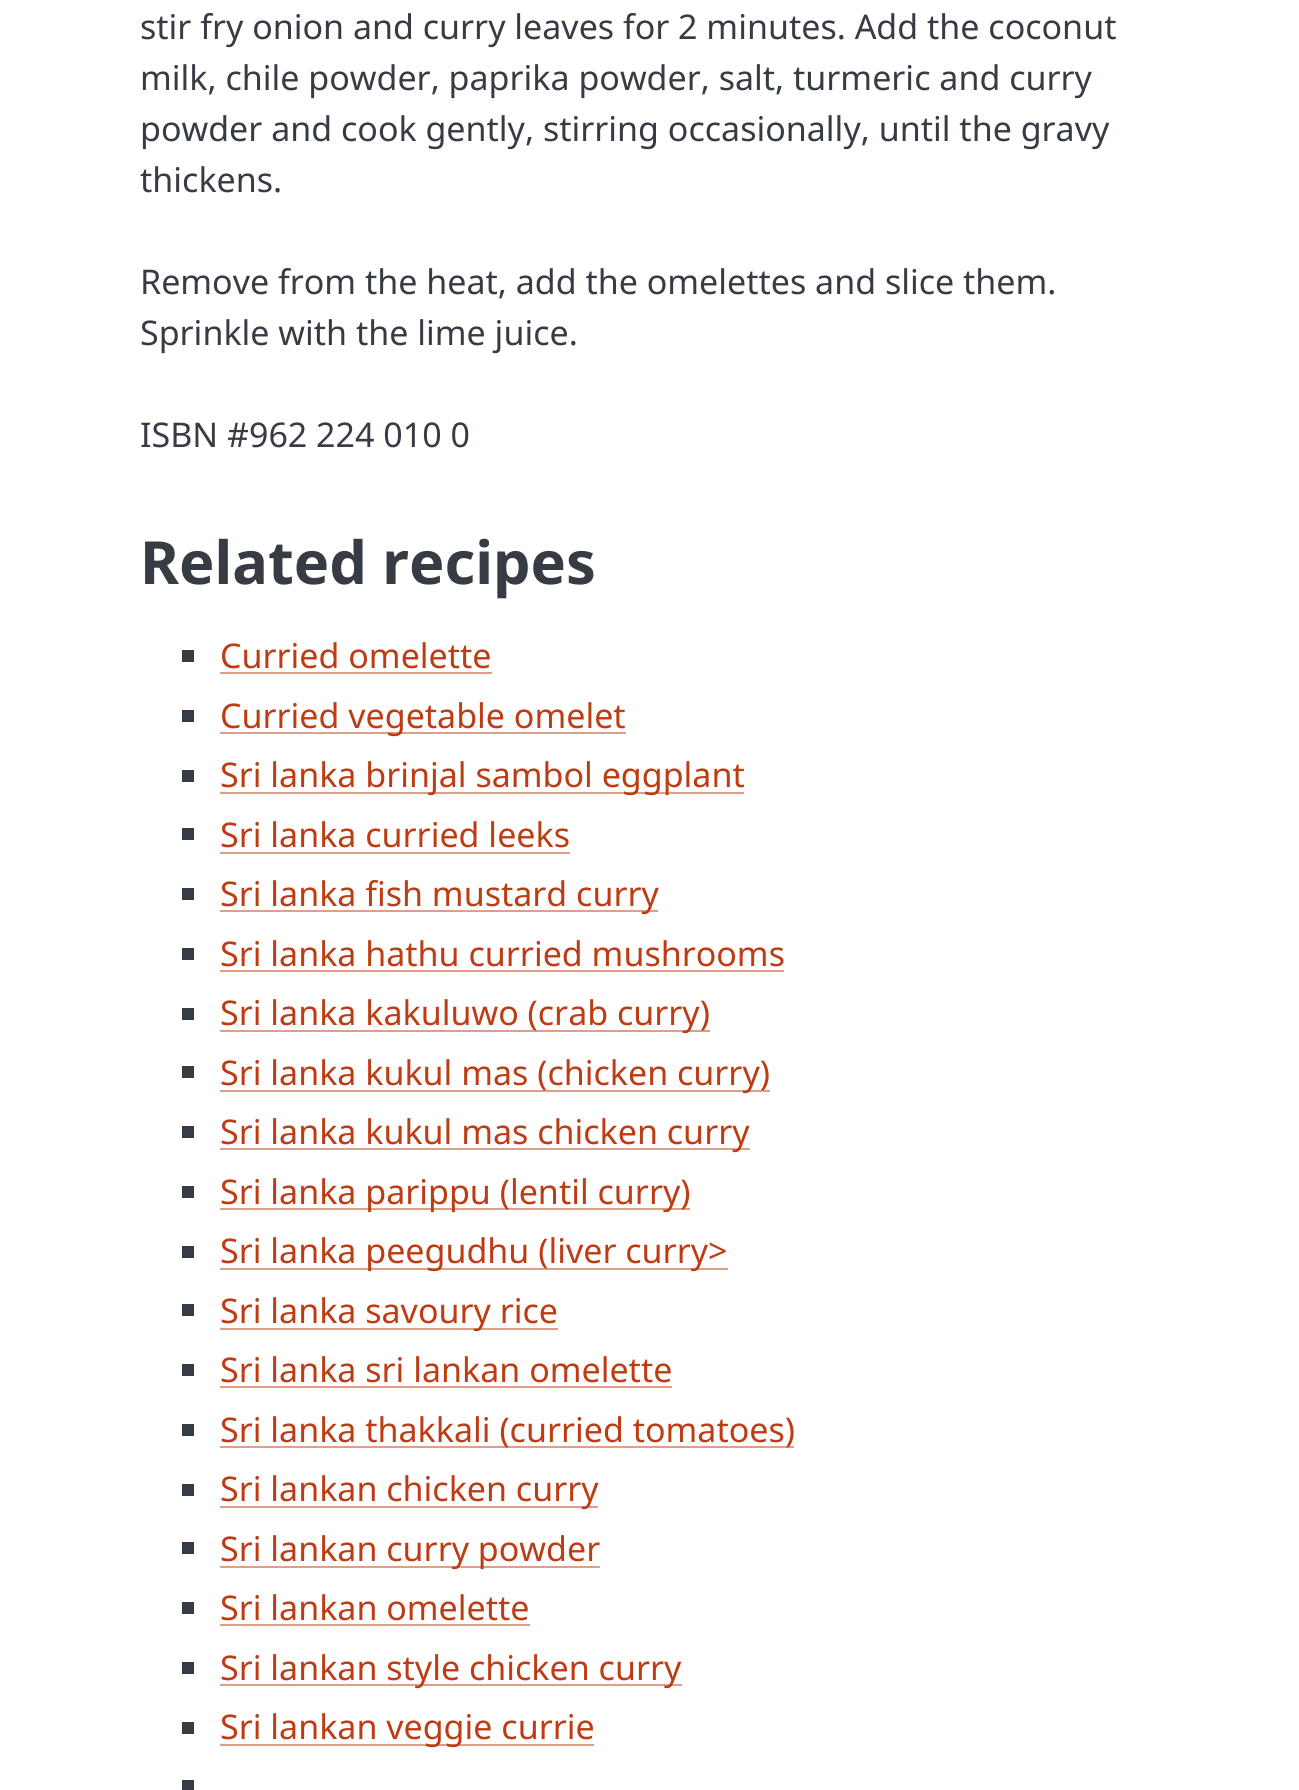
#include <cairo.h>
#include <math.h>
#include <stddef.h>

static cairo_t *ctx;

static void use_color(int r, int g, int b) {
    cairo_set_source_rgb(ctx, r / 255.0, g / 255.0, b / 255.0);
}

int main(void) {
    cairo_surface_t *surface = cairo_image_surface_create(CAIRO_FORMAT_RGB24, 1299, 1790);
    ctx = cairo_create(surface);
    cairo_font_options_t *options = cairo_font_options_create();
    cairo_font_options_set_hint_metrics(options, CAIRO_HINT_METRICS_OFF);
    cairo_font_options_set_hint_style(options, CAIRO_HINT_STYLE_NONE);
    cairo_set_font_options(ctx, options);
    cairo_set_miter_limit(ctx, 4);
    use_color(255, 255, 255);
    cairo_paint(ctx);
    cairo_select_font_face(ctx, "Noto Sans", CAIRO_FONT_SLANT_NORMAL, CAIRO_FONT_WEIGHT_NORMAL);
    cairo_set_font_size(ctx, 34);
    use_color(55, 60, 68);
    cairo_move_to(ctx, 140, 39);
    cairo_show_text(ctx, "stir fry onion and curry leaves for 2 minutes. Add the coconut");
    cairo_move_to(ctx, 140, 90);
    cairo_show_text(ctx, "milk, chile powder, paprika powder, salt, turmeric and curry");
    cairo_move_to(ctx, 140, 141);
    cairo_show_text(ctx, "powder and cook gently, stirring occasionally, until the gravy");
    cairo_move_to(ctx, 140, 192);
    cairo_show_text(ctx, "thickens.");
    cairo_move_to(ctx, 140, 294);
    cairo_show_text(ctx, "Remove from the heat, add the omelettes and slice them.");
    cairo_move_to(ctx, 140, 345);
    cairo_show_text(ctx, "Sprinkle with the lime juice.");
    cairo_move_to(ctx, 140, 447);
    cairo_show_text(ctx, "ISBN #962 224 010 0");
    cairo_select_font_face(ctx, "Noto Sans", CAIRO_FONT_SLANT_NORMAL, CAIRO_FONT_WEIGHT_BOLD);
    cairo_set_font_size(ctx, 59.5);
    cairo_move_to(ctx, 140, 584);
    cairo_show_text(ctx, "Related recipes");
    cairo_rectangle(ctx, 182, 650, 12, 12);
    cairo_fill(ctx);
    cairo_select_font_face(ctx, "Noto Sans", CAIRO_FONT_SLANT_NORMAL, CAIRO_FONT_WEIGHT_NORMAL);
    cairo_set_font_size(ctx, 34);
    use_color(189, 60, 19);
    cairo_move_to(ctx, 220, 668);
    cairo_show_text(ctx, "Curried omelette");
    use_color(222, 158, 137);
    cairo_rectangle(ctx, 220, 672, 272, 2);
    cairo_fill(ctx);
    use_color(55, 60, 68);
    cairo_rectangle(ctx, 182, 710, 12, 12);
    cairo_fill(ctx);
    use_color(222, 158, 137);
    cairo_rectangle(ctx, 220, 732, 406, 2);
    cairo_fill(ctx);
    use_color(189, 60, 19);
    cairo_move_to(ctx, 220, 728);
    cairo_show_text(ctx, "Curried vegetable omelet");
    use_color(55, 60, 68);
    cairo_rectangle(ctx, 182, 770, 12, 12);
    cairo_fill(ctx);
    use_color(222, 158, 137);
    cairo_rectangle(ctx, 220, 792, 524, 2);
    cairo_fill(ctx);
    use_color(189, 60, 19);
    cairo_move_to(ctx, 220, 787);
    cairo_show_text(ctx, "Sri lanka brinjal sambol eggplant");
    use_color(55, 60, 68);
    cairo_rectangle(ctx, 182, 828, 12, 12);
    cairo_fill(ctx);
    use_color(189, 60, 19);
    cairo_move_to(ctx, 220, 847);
    cairo_show_text(ctx, "Sri lanka curried leeks");
    use_color(222, 158, 137);
    cairo_rectangle(ctx, 220, 852, 350, 2);
    cairo_fill(ctx);
    use_color(55, 60, 68);
    cairo_rectangle(ctx, 182, 888, 12, 12);
    cairo_fill(ctx);
    use_color(222, 158, 137);
    cairo_rectangle(ctx, 220, 910, 438, 2);
    cairo_fill(ctx);
    use_color(189, 60, 19);
    cairo_move_to(ctx, 220, 906);
    cairo_show_text(ctx, "Sri lanka fish mustard curry");
    use_color(55, 60, 68);
    cairo_rectangle(ctx, 182, 948, 12, 12);
    cairo_fill(ctx);
    use_color(189, 60, 19);
    cairo_move_to(ctx, 220, 966);
    cairo_show_text(ctx, "Sri lanka hathu curried mushrooms");
    use_color(222, 158, 137);
    cairo_rectangle(ctx, 220, 970, 564, 2);
    cairo_fill(ctx);
    use_color(55, 60, 68);
    cairo_rectangle(ctx, 182, 1008, 12, 12);
    cairo_fill(ctx);
    use_color(222, 158, 137);
    cairo_rectangle(ctx, 220, 1030, 490, 2);
    cairo_fill(ctx);
    use_color(189, 60, 19);
    cairo_move_to(ctx, 220, 1025);
    cairo_show_text(ctx, "Sri lanka kakuluwo (crab curry)");
    use_color(55, 60, 68);
    cairo_rectangle(ctx, 182, 1066, 12, 12);
    cairo_fill(ctx);
    use_color(222, 158, 137);
    cairo_rectangle(ctx, 220, 1090, 550, 2);
    cairo_fill(ctx);
    use_color(189, 60, 19);
    cairo_move_to(ctx, 220, 1085);
    cairo_show_text(ctx, "Sri lanka kukul mas (chicken curry)");
    use_color(55, 60, 68);
    cairo_rectangle(ctx, 182, 1126, 12, 12);
    cairo_fill(ctx);
    use_color(222, 158, 137);
    cairo_rectangle(ctx, 220, 1148, 530, 2);
    cairo_fill(ctx);
    use_color(189, 60, 19);
    cairo_move_to(ctx, 220, 1144);
    cairo_show_text(ctx, "Sri lanka kukul mas chicken curry");
    use_color(55, 60, 68);
    cairo_rectangle(ctx, 182, 1186, 12, 12);
    cairo_fill(ctx);
    use_color(222, 158, 137);
    cairo_rectangle(ctx, 220, 1208, 470, 2);
    cairo_fill(ctx);
    use_color(189, 60, 19);
    cairo_move_to(ctx, 220, 1204);
    cairo_show_text(ctx, "Sri lanka parippu (lentil curry)");
    use_color(55, 60, 68);
    cairo_rectangle(ctx, 182, 1246, 12, 12);
    cairo_fill(ctx);
    use_color(222, 158, 137);
    cairo_rectangle(ctx, 220, 1268, 508, 2);
    cairo_fill(ctx);
    use_color(189, 60, 19);
    cairo_move_to(ctx, 220, 1263);
    cairo_show_text(ctx, "Sri lanka peegudhu (liver curry>");
    use_color(55, 60, 68);
    cairo_rectangle(ctx, 182, 1304, 12, 12);
    cairo_fill(ctx);
    use_color(222, 158, 137);
    cairo_rectangle(ctx, 220, 1328, 338, 2);
    cairo_fill(ctx);
    use_color(189, 60, 19);
    cairo_move_to(ctx, 220, 1323);
    cairo_show_text(ctx, "Sri lanka savoury rice");
    use_color(55, 60, 68);
    cairo_rectangle(ctx, 182, 1364, 12, 12);
    cairo_fill(ctx);
    use_color(189, 60, 19);
    cairo_move_to(ctx, 220, 1382);
    cairo_show_text(ctx, "Sri lanka sri lankan omelette");
    use_color(222, 158, 137);
    cairo_rectangle(ctx, 220, 1386, 452, 2);
    cairo_fill(ctx);
    use_color(55, 60, 68);
    cairo_rectangle(ctx, 182, 1424, 12, 12);
    cairo_fill(ctx);
    use_color(222, 158, 137);
    cairo_rectangle(ctx, 220, 1446, 574, 2);
    cairo_fill(ctx);
    use_color(189, 60, 19);
    cairo_move_to(ctx, 220, 1442);
    cairo_show_text(ctx, "Sri lanka thakkali (curried tomatoes)");
    use_color(55, 60, 68);
    cairo_rectangle(ctx, 182, 1484, 12, 12);
    cairo_fill(ctx);
    use_color(222, 158, 137);
    cairo_rectangle(ctx, 220, 1506, 378, 2);
    cairo_fill(ctx);
    use_color(189, 60, 19);
    cairo_move_to(ctx, 220, 1501);
    cairo_show_text(ctx, "Sri lankan chicken curry");
    use_color(55, 60, 68);
    cairo_rectangle(ctx, 182, 1542, 12, 12);
    cairo_fill(ctx);
    use_color(222, 158, 137);
    cairo_rectangle(ctx, 220, 1566, 380, 2);
    cairo_fill(ctx);
    use_color(189, 60, 19);
    cairo_move_to(ctx, 220, 1561);
    cairo_show_text(ctx, "Sri lankan curry powder");
    use_color(55, 60, 68);
    cairo_rectangle(ctx, 182, 1602, 12, 12);
    cairo_fill(ctx);
    use_color(189, 60, 19);
    cairo_move_to(ctx, 220, 1620);
    cairo_show_text(ctx, "Sri lankan omelette");
    use_color(222, 158, 137);
    cairo_rectangle(ctx, 220, 1624, 310, 2);
    cairo_fill(ctx);
    use_color(55, 60, 68);
    cairo_rectangle(ctx, 182, 1662, 12, 12);
    cairo_fill(ctx);
    use_color(222, 158, 137);
    cairo_rectangle(ctx, 220, 1684, 462, 2);
    cairo_fill(ctx);
    use_color(189, 60, 19);
    cairo_move_to(ctx, 220, 1680);
    cairo_show_text(ctx, "Sri lankan style chicken curry");
    use_color(55, 60, 68);
    cairo_rectangle(ctx, 182, 1722, 12, 12);
    cairo_fill(ctx);
    use_color(222, 158, 137);
    cairo_rectangle(ctx, 220, 1744, 374, 2);
    cairo_fill(ctx);
    use_color(189, 60, 19);
    cairo_move_to(ctx, 220, 1739);
    cairo_show_text(ctx, "Sri lankan veggie currie");
    use_color(55, 60, 68);
    cairo_rectangle(ctx, 182, 1780, 12, 10);
    cairo_fill(ctx);
    cairo_surface_write_to_png(surface, "result.png");
    cairo_font_options_destroy(options);
    cairo_destroy(ctx);
    cairo_surface_destroy(surface);
    return 0;
}
